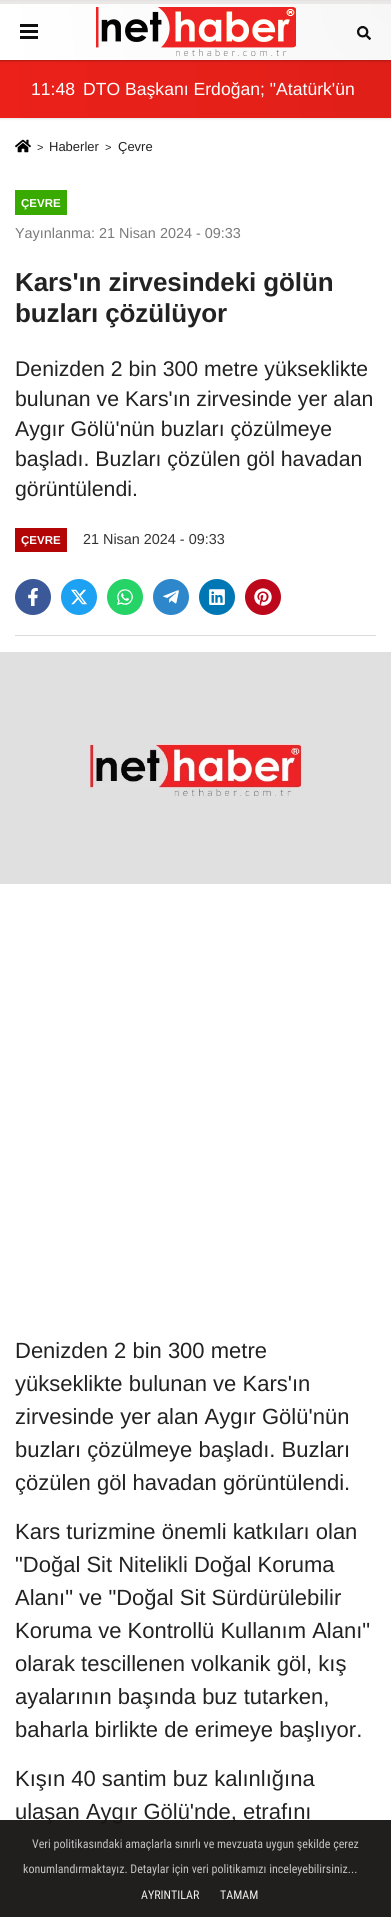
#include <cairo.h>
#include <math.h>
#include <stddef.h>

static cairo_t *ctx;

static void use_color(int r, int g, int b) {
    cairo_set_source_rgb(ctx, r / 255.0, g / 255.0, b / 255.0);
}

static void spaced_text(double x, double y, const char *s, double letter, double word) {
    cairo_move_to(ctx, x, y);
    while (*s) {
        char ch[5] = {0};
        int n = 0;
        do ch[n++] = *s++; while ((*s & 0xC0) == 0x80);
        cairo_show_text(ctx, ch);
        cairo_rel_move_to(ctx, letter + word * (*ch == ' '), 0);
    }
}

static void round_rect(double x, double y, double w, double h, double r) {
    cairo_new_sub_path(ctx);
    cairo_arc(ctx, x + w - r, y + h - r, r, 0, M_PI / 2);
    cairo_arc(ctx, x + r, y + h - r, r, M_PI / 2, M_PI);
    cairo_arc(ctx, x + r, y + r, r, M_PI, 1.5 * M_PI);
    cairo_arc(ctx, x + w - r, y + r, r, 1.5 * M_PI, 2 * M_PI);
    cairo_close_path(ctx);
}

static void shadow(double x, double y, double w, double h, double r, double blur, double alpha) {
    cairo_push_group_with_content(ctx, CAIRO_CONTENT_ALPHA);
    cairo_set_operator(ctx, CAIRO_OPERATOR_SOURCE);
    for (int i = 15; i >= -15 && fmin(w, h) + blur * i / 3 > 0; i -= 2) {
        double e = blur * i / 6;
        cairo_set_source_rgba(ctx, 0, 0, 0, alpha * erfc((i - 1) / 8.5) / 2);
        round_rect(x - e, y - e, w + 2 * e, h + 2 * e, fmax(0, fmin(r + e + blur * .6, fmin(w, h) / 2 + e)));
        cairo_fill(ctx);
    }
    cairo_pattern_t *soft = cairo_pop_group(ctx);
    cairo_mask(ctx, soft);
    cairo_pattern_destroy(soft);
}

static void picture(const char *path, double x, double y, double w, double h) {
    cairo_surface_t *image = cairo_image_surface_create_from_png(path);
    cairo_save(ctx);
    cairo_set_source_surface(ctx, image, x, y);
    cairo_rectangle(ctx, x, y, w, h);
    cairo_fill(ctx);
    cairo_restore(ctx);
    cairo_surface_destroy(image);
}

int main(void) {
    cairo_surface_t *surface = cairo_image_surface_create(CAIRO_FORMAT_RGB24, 391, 1917);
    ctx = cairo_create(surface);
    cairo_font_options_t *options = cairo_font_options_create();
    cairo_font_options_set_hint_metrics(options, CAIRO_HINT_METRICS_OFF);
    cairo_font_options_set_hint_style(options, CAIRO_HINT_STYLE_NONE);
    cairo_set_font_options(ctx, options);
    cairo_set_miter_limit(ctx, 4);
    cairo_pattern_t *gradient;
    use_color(230, 230, 230);
    cairo_paint(ctx);
    use_color(255, 255, 255);
    cairo_rectangle(ctx, 0, 118, 391, 1799);
    cairo_fill(ctx);
    use_color(0, 0, 0);
    shadow(0, 62, 391, 57, 0, 1, 0.1);
    gradient = cairo_pattern_create_linear(0, 90, 391, 89);
    cairo_pattern_add_color_stop_rgba(gradient, 0, 0.922, 0.129, 0.102, 1);
    cairo_pattern_add_color_stop_rgba(gradient, 1, 0.878, 0.122, 0.098, 1);
    cairo_set_source(ctx, gradient);
    cairo_pattern_destroy(gradient);
    cairo_rectangle(ctx, 0, 61, 391, 57);
    cairo_fill(ctx);
    use_color(0, 0, 0);
    shadow(0, 2, 391, 60, 0, 1, 0.1);
    gradient = cairo_pattern_create_radial(391, 4, 0, 391, 4, 395);
    cairo_pattern_add_color_stop_rgba(gradient, 0, 0.969, 0.969, 0.969, 1);
    cairo_pattern_add_color_stop_rgba(gradient, 1, 1, 1, 1, 1);
    cairo_set_source(ctx, gradient);
    cairo_pattern_destroy(gradient);
    cairo_rectangle(ctx, 0, 4, 391, 56);
    cairo_fill(ctx);
    use_color(235, 231, 230);
    cairo_rectangle(ctx, 0, 1, 391, 3);
    cairo_fill(ctx);
    use_color(189, 26, 21);
    cairo_rectangle(ctx, 0, 60, 391, 1);
    cairo_fill(ctx);
    use_color(15, 15, 15);
    cairo_rectangle(ctx, 20, 24, 18, 3);
    cairo_fill(ctx);
    cairo_rectangle(ctx, 20, 30, 18, 3);
    cairo_fill(ctx);
    cairo_rectangle(ctx, 20, 36, 18, 3);
    cairo_fill(ctx);
    picture("img1.png", 96, 7, 200, 49);
    picture("img2.png", 357, 26, 14, 14);
    cairo_select_font_face(ctx, "Liberation Sans", CAIRO_FONT_SLANT_NORMAL, CAIRO_FONT_WEIGHT_NORMAL);
    cairo_set_font_size(ctx, 17.6);
    use_color(255, 255, 255);
    cairo_move_to(ctx, 31, 95);
    cairo_show_text(ctx, "11:48");
    cairo_move_to(ctx, 83, 95);
    cairo_show_text(ctx, "DTO Başkanı Erdoğan; \"Atatürk'ün");
    picture("img3.png", 15, 139, 16, 14);
    cairo_set_font_size(ctx, 11);
    use_color(34, 34, 34);
    cairo_move_to(ctx, 37, 151);
    cairo_show_text(ctx, ">");
    cairo_set_font_size(ctx, 13);
    cairo_move_to(ctx, 49, 151);
    cairo_show_text(ctx, "Haberler");
    cairo_set_font_size(ctx, 11);
    cairo_move_to(ctx, 105, 151);
    cairo_show_text(ctx, ">");
    cairo_set_font_size(ctx, 13);
    cairo_move_to(ctx, 118, 151);
    cairo_show_text(ctx, "Çevre");
    use_color(57, 171, 0);
    cairo_rectangle(ctx, 15, 190, 52, 25);
    cairo_fill(ctx);
    cairo_select_font_face(ctx, "Liberation Sans", CAIRO_FONT_SLANT_NORMAL, CAIRO_FONT_WEIGHT_BOLD);
    cairo_set_font_size(ctx, 11.5);
    use_color(255, 255, 255);
    cairo_move_to(ctx, 21, 207);
    cairo_show_text(ctx, "ÇEVRE");
    cairo_select_font_face(ctx, "Liberation Sans", CAIRO_FONT_SLANT_NORMAL, CAIRO_FONT_WEIGHT_NORMAL);
    cairo_set_font_size(ctx, 14.4);
    use_color(122, 122, 122);
    cairo_move_to(ctx, 15, 238);
    cairo_show_text(ctx, "Yayınlanma: 21 Nisan 2024 - 09:33");
    cairo_select_font_face(ctx, "Liberation Sans", CAIRO_FONT_SLANT_NORMAL, CAIRO_FONT_WEIGHT_BOLD);
    cairo_set_font_size(ctx, 26);
    use_color(34, 34, 34);
    spaced_text(15, 291, "Kars'ın zirvesindeki gölün", -0.1, 0);
    spaced_text(15, 322, "buzları çözülüyor", -0.1, 0);
    cairo_select_font_face(ctx, "Liberation Sans", CAIRO_FONT_SLANT_NORMAL, CAIRO_FONT_WEIGHT_NORMAL);
    cairo_set_font_size(ctx, 21.25);
    cairo_move_to(ctx, 15, 376);
    cairo_show_text(ctx, "Denizden 2 bin 300 metre yükseklikte");
    cairo_move_to(ctx, 15, 406);
    cairo_show_text(ctx, "bulunan ve Kars'ın zirvesinde yer alan");
    cairo_move_to(ctx, 15, 436);
    cairo_show_text(ctx, "Aygır Gölü'nün buzları çözülmeye");
    cairo_move_to(ctx, 15, 466);
    cairo_show_text(ctx, "başladı. Buzları çözülen göl havadan");
    cairo_move_to(ctx, 15, 496);
    cairo_show_text(ctx, "görüntülendi.");
    use_color(179, 5, 5);
    cairo_rectangle(ctx, 15, 528, 52, 24);
    cairo_fill(ctx);
    cairo_select_font_face(ctx, "Liberation Sans", CAIRO_FONT_SLANT_NORMAL, CAIRO_FONT_WEIGHT_BOLD);
    cairo_set_font_size(ctx, 11.5);
    use_color(255, 255, 255);
    cairo_move_to(ctx, 21, 544);
    cairo_show_text(ctx, "ÇEVRE");
    cairo_select_font_face(ctx, "Liberation Sans", CAIRO_FONT_SLANT_NORMAL, CAIRO_FONT_WEIGHT_NORMAL);
    cairo_set_font_size(ctx, 14.4);
    use_color(51, 51, 51);
    cairo_move_to(ctx, 83, 544);
    cairo_show_text(ctx, "21 Nisan 2024 - 09:33");
    use_color(59, 89, 152);
    cairo_new_path(ctx);
    cairo_arc(ctx, 33, 597, 18, 0, 2 * M_PI);
    cairo_fill(ctx);
    picture("img4.png", 28, 588, 10, 18);
    use_color(29, 161, 242);
    cairo_arc(ctx, 79, 597, 18, 0, 2 * M_PI);
    cairo_fill(ctx);
    picture("img5.png", 71, 589, 16, 16);
    use_color(37, 211, 102);
    cairo_arc(ctx, 125, 597, 18, 0, 2 * M_PI);
    cairo_fill(ctx);
    picture("img6.png", 117, 589, 16, 16);
    use_color(46, 135, 202);
    cairo_arc(ctx, 171, 597, 18, 0, 2 * M_PI);
    cairo_fill(ctx);
    picture("img7.png", 163, 590, 16, 14);
    use_color(0, 119, 181);
    cairo_arc(ctx, 217, 597, 18, 0, 2 * M_PI);
    cairo_fill(ctx);
    picture("img8.png", 209, 589, 16, 16);
    use_color(189, 8, 28);
    cairo_arc(ctx, 263, 597, 18, 0, 2 * M_PI);
    cairo_fill(ctx);
    picture("img9.png", 254, 588, 18, 18);
    use_color(217, 217, 217);
    cairo_rectangle(ctx, 15, 635, 361, 1);
    cairo_fill(ctx);
    picture("img10.png", 0, 652, 391, 232);
    cairo_set_font_size(ctx, 22);
    use_color(34, 34, 34);
    cairo_move_to(ctx, 15, 1358);
    cairo_show_text(ctx, "Denizden 2 bin 300 metre");
    cairo_move_to(ctx, 15, 1391);
    cairo_show_text(ctx, "yükseklikte bulunan ve Kars'ın");
    cairo_move_to(ctx, 15, 1424);
    cairo_show_text(ctx, "zirvesinde yer alan Aygır Gölü'nün");
    cairo_move_to(ctx, 15, 1457);
    cairo_show_text(ctx, "buzları çözülmeye başladı. Buzları");
    cairo_move_to(ctx, 15, 1490);
    cairo_show_text(ctx, "çözülen göl havadan görüntülendi.");
    cairo_move_to(ctx, 15, 1539);
    cairo_show_text(ctx, "Kars turizmine önemli katkıları olan");
    cairo_move_to(ctx, 15, 1572);
    cairo_show_text(ctx, "\"Doğal Sit Nitelikli Doğal Koruma");
    cairo_move_to(ctx, 15, 1605);
    cairo_show_text(ctx, "Alanı\" ve \"Doğal Sit Sürdürülebilir");
    cairo_move_to(ctx, 15, 1638);
    cairo_show_text(ctx, "Koruma ve Kontrollü Kullanım Alanı\"");
    cairo_move_to(ctx, 15, 1671);
    cairo_show_text(ctx, "olarak tescillenen volkanik göl, kış");
    cairo_move_to(ctx, 15, 1704);
    cairo_show_text(ctx, "ayalarının başında buz tutarken,");
    cairo_move_to(ctx, 15, 1737);
    cairo_show_text(ctx, "baharla birlikte de erimeye başlıyor.");
    cairo_move_to(ctx, 15, 1786);
    cairo_show_text(ctx, "Kışın 40 santim buz kalınlığına");
    cairo_move_to(ctx, 15, 1819);
    cairo_show_text(ctx, "ulaşan Aygır Gölü'nde, etrafını");
    cairo_set_source_rgba(ctx, 0.09, 0.078, 0.078, 0.95);
    cairo_rectangle(ctx, 0, 1820, 391, 97);
    cairo_fill(ctx);
    cairo_select_font_face(ctx, "Roboto Condensed", CAIRO_FONT_SLANT_NORMAL, CAIRO_FONT_WEIGHT_NORMAL);
    cairo_set_font_size(ctx, 12);
    use_color(195, 195, 195);
    cairo_move_to(ctx, 32, 1848);
    cairo_show_text(ctx, "Veri politikasındaki amaçlarla sınırlı ve mevzuata uygun şekilde çerez");
    cairo_move_to(ctx, 23, 1873);
    cairo_show_text(ctx, "konumlandırmaktayız. Detaylar için veri politikamızı inceleyebilirsiniz...");
    use_color(239, 239, 239);
    cairo_move_to(ctx, 141, 1899);
    cairo_show_text(ctx, "AYRINTILAR");
    cairo_move_to(ctx, 220, 1899);
    cairo_show_text(ctx, "TAMAM");
    cairo_surface_write_to_png(surface, "result.png");
    cairo_font_options_destroy(options);
    cairo_destroy(ctx);
    cairo_surface_destroy(surface);
    return 0;
}
